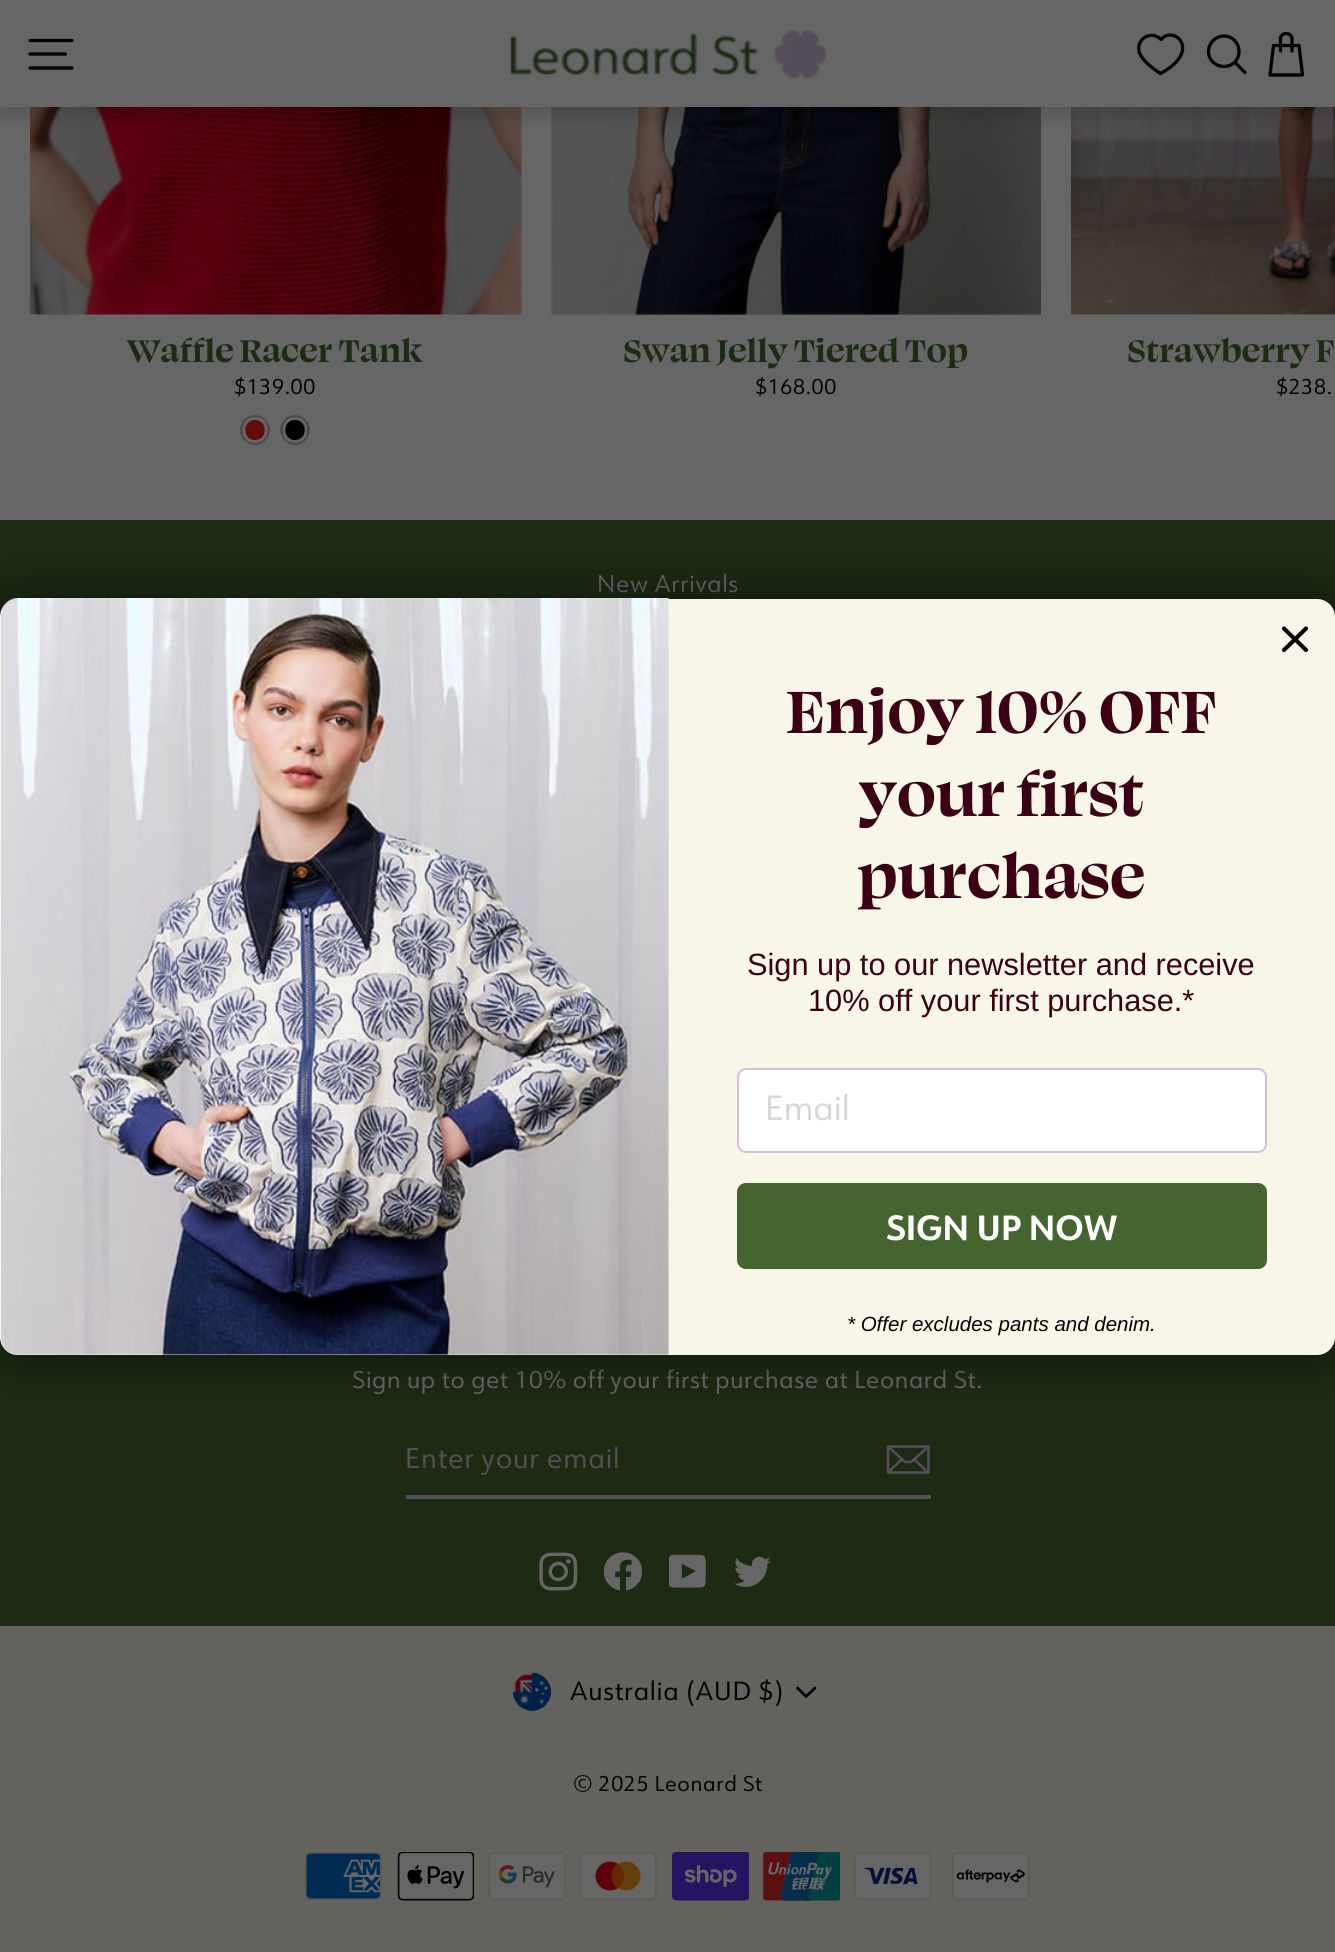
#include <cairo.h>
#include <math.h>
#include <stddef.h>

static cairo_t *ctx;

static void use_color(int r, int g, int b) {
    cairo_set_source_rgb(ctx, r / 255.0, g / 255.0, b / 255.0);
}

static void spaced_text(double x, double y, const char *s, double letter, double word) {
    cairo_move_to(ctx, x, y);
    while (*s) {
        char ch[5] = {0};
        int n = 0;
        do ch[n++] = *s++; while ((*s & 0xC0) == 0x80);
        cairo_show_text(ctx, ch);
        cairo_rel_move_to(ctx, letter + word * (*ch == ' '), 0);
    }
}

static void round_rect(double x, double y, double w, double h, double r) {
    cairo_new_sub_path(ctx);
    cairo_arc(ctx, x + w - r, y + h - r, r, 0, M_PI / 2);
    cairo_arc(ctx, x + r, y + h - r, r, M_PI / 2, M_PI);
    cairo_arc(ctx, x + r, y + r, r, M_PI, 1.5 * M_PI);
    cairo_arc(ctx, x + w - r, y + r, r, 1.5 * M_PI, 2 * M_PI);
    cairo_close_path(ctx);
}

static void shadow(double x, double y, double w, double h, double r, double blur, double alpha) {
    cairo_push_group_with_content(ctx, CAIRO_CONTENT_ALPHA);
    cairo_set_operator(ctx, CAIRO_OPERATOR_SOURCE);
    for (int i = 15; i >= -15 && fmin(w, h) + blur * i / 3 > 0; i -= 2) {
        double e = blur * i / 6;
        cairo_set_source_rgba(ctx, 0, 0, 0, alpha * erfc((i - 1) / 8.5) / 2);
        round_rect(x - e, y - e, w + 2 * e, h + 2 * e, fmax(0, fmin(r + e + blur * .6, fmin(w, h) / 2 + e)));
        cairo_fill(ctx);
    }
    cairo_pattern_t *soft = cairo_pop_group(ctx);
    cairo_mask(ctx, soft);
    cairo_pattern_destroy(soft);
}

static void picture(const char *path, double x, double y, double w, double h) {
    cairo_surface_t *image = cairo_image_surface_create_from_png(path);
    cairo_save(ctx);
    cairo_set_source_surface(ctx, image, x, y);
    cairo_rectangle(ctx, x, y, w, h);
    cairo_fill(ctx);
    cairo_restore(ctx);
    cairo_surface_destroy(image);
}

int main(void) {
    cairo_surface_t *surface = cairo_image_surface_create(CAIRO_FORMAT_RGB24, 1335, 1952);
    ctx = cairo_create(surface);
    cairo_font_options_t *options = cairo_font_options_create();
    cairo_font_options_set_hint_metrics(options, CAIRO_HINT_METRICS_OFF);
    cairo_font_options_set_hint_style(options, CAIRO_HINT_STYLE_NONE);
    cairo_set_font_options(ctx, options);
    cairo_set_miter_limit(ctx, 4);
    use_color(102, 102, 102);
    cairo_paint(ctx);
    picture("img2.png", 30, 107, 492, 208);
    picture("img3.png", 551, 107, 490, 208);
    picture("img4.png", 1071, 107, 264, 208);
    use_color(0, 0, 0);
    shadow(0, 9, 1335, 107, 0, 9, 0.15);
    use_color(102, 102, 102);
    cairo_rectangle(ctx, 0, 0, 1335, 107);
    cairo_fill(ctx);
    cairo_new_path(ctx);
    cairo_move_to(ctx, 30, 40.5);
    cairo_line_to(ctx, 72, 40.5);
    cairo_move_to(ctx, 30, 54);
    cairo_line_to(ctx, 65.5, 54);
    cairo_move_to(ctx, 30, 68);
    cairo_line_to(ctx, 72, 68);
    use_color(2, 3, 3);
    cairo_set_line_width(ctx, 3.3);
    cairo_set_line_cap(ctx, CAIRO_LINE_CAP_ROUND);
    cairo_set_line_join(ctx, CAIRO_LINE_JOIN_ROUND);
    cairo_stroke(ctx);
    picture("img1.png", 510, 30, 317, 48);
    cairo_new_path(ctx);
    cairo_move_to(ctx, 1160.5, 73.5);
    cairo_curve_to(ctx, 1156.5, 71, 1152.5, 68, 1149, 65);
    cairo_curve_to(ctx, 1145, 61.5, 1141.5, 57.5, 1139.5, 53);
    cairo_curve_to(ctx, 1135, 39, 1151.5, 29.5, 1161, 39.5);
    cairo_curve_to(ctx, 1173.5, 24.5, 1203, 50.5, 1160.5, 73.5);
    cairo_close_path(ctx);
    cairo_stroke(ctx);
    cairo_new_path(ctx);
    cairo_move_to(ctx, 1239, 51.5);
    cairo_curve_to(ctx, 1239, 60, 1232.5, 66.5, 1224, 66.5);
    cairo_curve_to(ctx, 1215.5, 66.5, 1208.5, 60, 1208.5, 51.5);
    cairo_curve_to(ctx, 1208.5, 43, 1215.5, 36, 1224, 36);
    cairo_curve_to(ctx, 1232.5, 36, 1239, 43, 1239, 51.5);
    cairo_close_path(ctx);
    cairo_move_to(ctx, 1245, 72.5);
    cairo_line_to(ctx, 1235, 62.5);
    cairo_stroke(ctx);
    cairo_new_path(ctx);
    cairo_move_to(ctx, 1280.5, 51);
    cairo_line_to(ctx, 1280.5, 38.5);
    cairo_curve_to(ctx, 1280.5, 36, 1283, 33.5, 1286, 33.5);
    cairo_curve_to(ctx, 1289.5, 33.5, 1292, 36, 1292, 38.5);
    cairo_line_to(ctx, 1292, 51);
    cairo_move_to(ctx, 1299, 45.5);
    cairo_line_to(ctx, 1273.5, 45.5);
    cairo_line_to(ctx, 1270, 75);
    cairo_line_to(ctx, 1302.5, 75);
    cairo_close_path(ctx);
    cairo_stroke(ctx);
    cairo_select_font_face(ctx, "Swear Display", CAIRO_FONT_SLANT_NORMAL, CAIRO_FONT_WEIGHT_BOLD);
    cairo_set_font_size(ctx, 36);
    use_color(29, 42, 20);
    cairo_move_to(ctx, 127, 362);
    cairo_show_text(ctx, "Waffle Racer Tank");
    cairo_select_font_face(ctx, "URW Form", CAIRO_FONT_SLANT_NORMAL, CAIRO_FONT_WEIGHT_NORMAL);
    cairo_set_font_size(ctx, 21);
    use_color(2, 3, 3);
    spaced_text(234, 394, "$139.00", 0.65, 0);
    cairo_new_path(ctx);
    cairo_arc(ctx, 255, 430, 14, 0, 2 * M_PI);
    use_color(77, 77, 77);
    cairo_set_line_width(ctx, 2);
    cairo_set_line_cap(ctx, CAIRO_LINE_CAP_BUTT);
    cairo_set_line_join(ctx, CAIRO_LINE_JOIN_MITER);
    cairo_stroke(ctx);
    use_color(98, 12, 12);
    cairo_arc(ctx, 255, 430, 13, 0, 2 * M_PI);
    cairo_fill(ctx);
    use_color(102, 102, 102);
    cairo_set_fill_rule(ctx, CAIRO_FILL_RULE_EVEN_ODD);
    cairo_new_path(ctx);
    cairo_move_to(ctx, 255, 417);
    cairo_curve_to(ctx, 238, 417, 238, 443, 255, 443);
    cairo_curve_to(ctx, 272, 443, 272, 417, 255, 417);
    cairo_close_path(ctx);
    cairo_move_to(ctx, 255, 420);
    cairo_curve_to(ctx, 242, 420, 242, 440, 255, 440);
    cairo_curve_to(ctx, 268, 440, 268, 420, 255, 420);
    cairo_close_path(ctx);
    cairo_fill(ctx);
    cairo_arc(ctx, 295, 430, 14, 0, 2 * M_PI);
    use_color(77, 77, 77);
    cairo_stroke(ctx);
    use_color(0, 0, 0);
    cairo_arc(ctx, 295, 430, 13, 0, 2 * M_PI);
    cairo_fill(ctx);
    use_color(102, 102, 102);
    cairo_new_path(ctx);
    cairo_move_to(ctx, 295, 417);
    cairo_curve_to(ctx, 278, 417, 278, 443, 295, 443);
    cairo_curve_to(ctx, 312, 443, 312, 417, 295, 417);
    cairo_close_path(ctx);
    cairo_move_to(ctx, 295, 420);
    cairo_curve_to(ctx, 282, 420, 282, 440, 295, 440);
    cairo_curve_to(ctx, 308, 440, 308, 420, 295, 420);
    cairo_close_path(ctx);
    cairo_fill(ctx);
    cairo_select_font_face(ctx, "Swear Display", CAIRO_FONT_SLANT_NORMAL, CAIRO_FONT_WEIGHT_BOLD);
    cairo_set_font_size(ctx, 36);
    use_color(29, 42, 20);
    cairo_move_to(ctx, 623, 362);
    cairo_show_text(ctx, "Swan Jelly Tiered Top");
    cairo_select_font_face(ctx, "URW Form", CAIRO_FONT_SLANT_NORMAL, CAIRO_FONT_WEIGHT_NORMAL);
    cairo_set_font_size(ctx, 21);
    use_color(2, 3, 3);
    spaced_text(755, 394, "$168.00", 0.65, 0);
    cairo_select_font_face(ctx, "Swear Display", CAIRO_FONT_SLANT_NORMAL, CAIRO_FONT_WEIGHT_BOLD);
    cairo_set_font_size(ctx, 36);
    use_color(29, 42, 20);
    cairo_move_to(ctx, 1127, 362);
    cairo_show_text(ctx, "Strawberry F");
    cairo_select_font_face(ctx, "URW Form", CAIRO_FONT_SLANT_NORMAL, CAIRO_FONT_WEIGHT_NORMAL);
    cairo_set_font_size(ctx, 21);
    use_color(2, 3, 3);
    spaced_text(1276, 394, "$238.", 0.65, 0);
    use_color(29, 42, 20);
    cairo_rectangle(ctx, 0, 520, 1335, 1106);
    cairo_fill(ctx);
    cairo_set_font_size(ctx, 23.8);
    use_color(102, 102, 102);
    spaced_text(597, 592, "New Arrivals", 0.65, 0);
    spaced_text(352, 1388, "Sign up to get 10% off your first purchase at Leonard St.", 0.65, 0);
    use_color(84, 78, 86);
    cairo_rectangle(ctx, 406, 1495, 525, 4);
    cairo_fill(ctx);
    cairo_set_font_size(ctx, 28);
    spaced_text(405, 1468, "Enter your email", 0.75, 0);
    cairo_new_path(ctx);
    cairo_move_to(ctx, 928.5, 1472.5);
    cairo_line_to(ctx, 888, 1472.5);
    cairo_line_to(ctx, 888, 1446.5);
    cairo_line_to(ctx, 928.5, 1446.5);
    cairo_close_path(ctx);
    cairo_move_to(ctx, 888, 1446.5);
    cairo_line_to(ctx, 905, 1462);
    cairo_line_to(ctx, 911, 1462);
    cairo_line_to(ctx, 928.5, 1446.5);
    cairo_move_to(ctx, 901.5, 1459.5);
    cairo_line_to(ctx, 888.5, 1472);
    cairo_move_to(ctx, 928, 1472.5);
    cairo_line_to(ctx, 914.5, 1459.5);
    cairo_set_line_width(ctx, 2.6);
    cairo_set_line_cap(ctx, CAIRO_LINE_CAP_ROUND);
    cairo_set_line_join(ctx, CAIRO_LINE_JOIN_ROUND);
    cairo_stroke(ctx);
    picture("img5.png", 539, 1552, 39, 39);
    picture("img6.png", 604, 1552, 38, 39);
    picture("img7.png", 669, 1554, 37, 34);
    picture("img8.png", 734, 1556, 37, 31);
    use_color(99, 98, 93);
    cairo_rectangle(ctx, 0, 1626, 1335, 326);
    cairo_fill(ctx);
    picture("img9.png", 512, 1672, 40, 39);
    cairo_set_font_size(ctx, 25.75);
    use_color(2, 3, 3);
    spaced_text(570, 1700, "Australia (AUD $)", 0.65, 0);
    cairo_new_path(ctx);
    cairo_move_to(ctx, 797.5, 1688);
    cairo_line_to(ctx, 806, 1696.5);
    cairo_line_to(ctx, 815, 1688);
    cairo_set_line_width(ctx, 2.8);
    cairo_stroke(ctx);
    cairo_set_font_size(ctx, 21);
    spaced_text(573, 1791, "© 2025 Leonard St", 0.65, 0);
    picture("img10.png", 305, 1852, 77, 49);
    picture("img11.png", 397, 1852, 77, 49);
    picture("img12.png", 488, 1852, 77, 49);
    picture("img13.png", 579, 1852, 78, 49);
    picture("img14.png", 672, 1852, 77, 49);
    picture("img15.png", 763, 1852, 77, 49);
    picture("img16.png", 854, 1852, 78, 49);
    picture("img17.png", 952, 1852, 78, 49);
    use_color(0, 0, 0);
    shadow(0, 599, 1335, 756, 18, 25.5, 0.5);
    use_color(248, 246, 233);
    round_rect(0, 599, 1335, 756, 18);
    cairo_fill(ctx);
    cairo_new_path(ctx);
    cairo_move_to(ctx, 1284, 628.5);
    cairo_line_to(ctx, 1306, 650);
    cairo_move_to(ctx, 1284, 650);
    cairo_line_to(ctx, 1306, 628.5);
    cairo_close_path(ctx);
    use_color(0, 0, 0);
    cairo_set_line_width(ctx, 4.1);
    cairo_stroke(ctx);
    picture("img18.png", 1, 598, 668, 757);
    cairo_select_font_face(ctx, "Swear Display", CAIRO_FONT_SLANT_NORMAL, CAIRO_FONT_WEIGHT_BOLD);
    cairo_set_font_size(ctx, 68.5);
    use_color(59, 0, 20);
    cairo_move_to(ctx, 786, 733);
    cairo_show_text(ctx, "Enjoy 10% OFF");
    cairo_move_to(ctx, 859, 816);
    cairo_show_text(ctx, "your first");
    cairo_move_to(ctx, 857, 898);
    cairo_show_text(ctx, "purchase");
    cairo_select_font_face(ctx, "Liberation Sans", CAIRO_FONT_SLANT_NORMAL, CAIRO_FONT_WEIGHT_NORMAL);
    cairo_set_font_size(ctx, 30.75);
    cairo_move_to(ctx, 747, 975);
    cairo_show_text(ctx, "Sign up to our newsletter and receive");
    cairo_move_to(ctx, 808, 1011);
    cairo_show_text(ctx, "10% off your first purchase.*");
    use_color(255, 255, 255);
    round_rect(738, 1069, 528, 83, 8);
    cairo_fill_preserve(ctx);
    use_color(212, 191, 221);
    cairo_set_line_width(ctx, 2);
    cairo_set_line_cap(ctx, CAIRO_LINE_CAP_BUTT);
    cairo_set_line_join(ctx, CAIRO_LINE_JOIN_MITER);
    cairo_stroke(ctx);
    cairo_select_font_face(ctx, "URW Form", CAIRO_FONT_SLANT_NORMAL, CAIRO_FONT_WEIGHT_NORMAL);
    cairo_set_font_size(ctx, 34.25);
    use_color(215, 215, 215);
    cairo_move_to(ctx, 765, 1120);
    cairo_show_text(ctx, "Email");
    use_color(70, 100, 47);
    round_rect(737, 1183, 530, 86, 9);
    cairo_fill(ctx);
    cairo_select_font_face(ctx, "URW Form", CAIRO_FONT_SLANT_NORMAL, CAIRO_FONT_WEIGHT_BOLD);
    use_color(255, 255, 255);
    cairo_move_to(ctx, 886, 1240);
    cairo_show_text(ctx, "SIGN UP NOW");
    cairo_select_font_face(ctx, "Liberation Sans", CAIRO_FONT_SLANT_ITALIC, CAIRO_FONT_WEIGHT_NORMAL);
    cairo_set_font_size(ctx, 20.5);
    use_color(2, 3, 3);
    cairo_move_to(ctx, 847, 1331);
    cairo_show_text(ctx, "* Offer excludes pants and denim.");
    cairo_surface_write_to_png(surface, "result.png");
    cairo_font_options_destroy(options);
    cairo_destroy(ctx);
    cairo_surface_destroy(surface);
    return 0;
}
